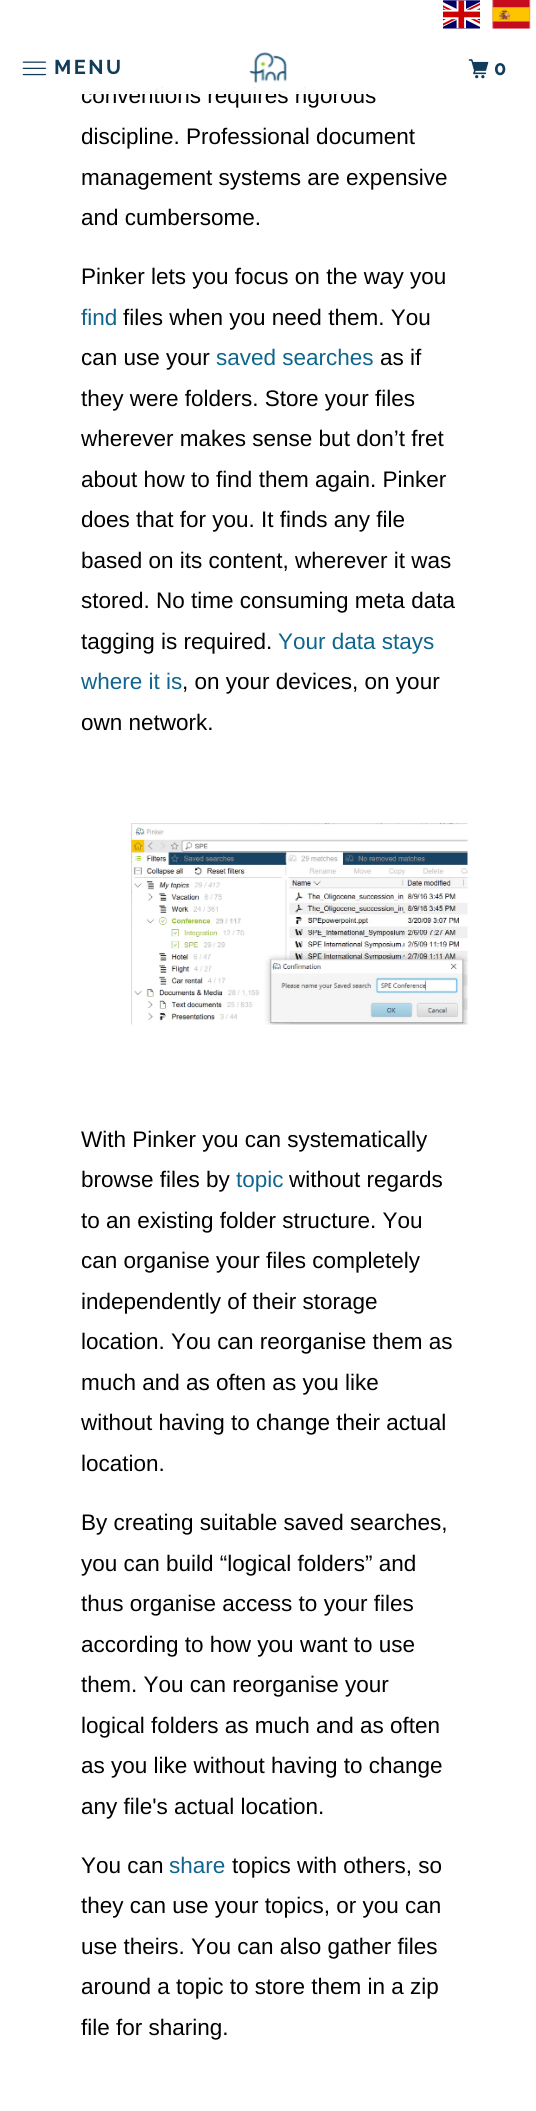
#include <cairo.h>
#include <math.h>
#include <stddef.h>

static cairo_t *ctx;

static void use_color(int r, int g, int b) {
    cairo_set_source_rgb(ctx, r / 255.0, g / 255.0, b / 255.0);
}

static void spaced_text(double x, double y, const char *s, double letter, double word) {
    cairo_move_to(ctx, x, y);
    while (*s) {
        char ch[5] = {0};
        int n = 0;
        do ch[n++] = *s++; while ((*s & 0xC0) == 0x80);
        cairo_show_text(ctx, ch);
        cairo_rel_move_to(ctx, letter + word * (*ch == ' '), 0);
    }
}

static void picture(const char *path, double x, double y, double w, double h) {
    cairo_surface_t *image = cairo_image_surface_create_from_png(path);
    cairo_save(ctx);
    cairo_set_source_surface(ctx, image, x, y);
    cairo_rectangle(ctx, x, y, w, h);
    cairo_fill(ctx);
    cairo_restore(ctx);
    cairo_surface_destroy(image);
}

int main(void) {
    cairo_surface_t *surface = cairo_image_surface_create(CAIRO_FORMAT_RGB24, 536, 2111);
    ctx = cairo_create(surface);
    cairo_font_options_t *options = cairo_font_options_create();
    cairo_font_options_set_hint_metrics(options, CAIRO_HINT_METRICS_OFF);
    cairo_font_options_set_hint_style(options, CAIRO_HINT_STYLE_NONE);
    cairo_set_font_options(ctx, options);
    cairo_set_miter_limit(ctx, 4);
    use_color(255, 255, 255);
    cairo_paint(ctx);
    cairo_select_font_face(ctx, "Liberation Sans", CAIRO_FONT_SLANT_NORMAL, CAIRO_FONT_WEIGHT_NORMAL);
    cairo_set_font_size(ctx, 22.5);
    use_color(0, 0, 0);
    cairo_move_to(ctx, 81, 103);
    cairo_show_text(ctx, "conventions requires rigorous");
    cairo_set_source_rgba(ctx, 1, 1, 1, 0.95);
    cairo_rectangle(ctx, 82, 86, 293, 8);
    cairo_fill(ctx);
    cairo_rectangle(ctx, 82, 93, 293, 1);
    cairo_fill(ctx);
    picture("img1.png", 22, 61, 24, 15);
    cairo_select_font_face(ctx, "Raleway", CAIRO_FONT_SLANT_NORMAL, CAIRO_FONT_WEIGHT_BOLD);
    cairo_set_font_size(ctx, 20);
    use_color(17, 60, 90);
    spaced_text(54, 74, "MENU", 2.5, 0);
    picture("img2.png", 249, 52, 38, 32);
    picture("img3.png", 468, 59, 21, 20);
    spaced_text(494, 75, "0", 2.5, 0);
    picture("img4.png", 443, 0, 37, 29);
    picture("img5.png", 492, 0, 39, 29);
    cairo_select_font_face(ctx, "Liberation Sans", CAIRO_FONT_SLANT_NORMAL, CAIRO_FONT_WEIGHT_NORMAL);
    cairo_set_font_size(ctx, 22.5);
    use_color(0, 0, 0);
    cairo_move_to(ctx, 81, 144);
    cairo_show_text(ctx, "discipline. Professional document");
    cairo_move_to(ctx, 81, 185);
    cairo_show_text(ctx, "management systems are expensive");
    cairo_move_to(ctx, 81, 225);
    cairo_show_text(ctx, "and cumbersome.");
    cairo_move_to(ctx, 81, 284);
    cairo_show_text(ctx, "Pinker lets you focus on the way you");
    use_color(15, 101, 141);
    cairo_move_to(ctx, 81, 325);
    cairo_show_text(ctx, "find");
    use_color(0, 0, 0);
    cairo_move_to(ctx, 123, 325);
    cairo_show_text(ctx, "files when you need them. You");
    cairo_move_to(ctx, 81, 365);
    cairo_show_text(ctx, "can use your");
    use_color(15, 101, 141);
    cairo_move_to(ctx, 216, 365);
    cairo_show_text(ctx, "saved searches");
    use_color(0, 0, 0);
    cairo_move_to(ctx, 380, 365);
    cairo_show_text(ctx, "as if");
    cairo_move_to(ctx, 81, 406);
    cairo_show_text(ctx, "they were folders. Store your files");
    cairo_move_to(ctx, 81, 446);
    cairo_show_text(ctx, "wherever makes sense but don’t fret");
    cairo_move_to(ctx, 81, 487);
    cairo_show_text(ctx, "about how to find them again. Pinker");
    cairo_move_to(ctx, 81, 527);
    cairo_show_text(ctx, "does that for you. It finds any file");
    cairo_move_to(ctx, 81, 568);
    cairo_show_text(ctx, "based on its content, wherever it was");
    cairo_move_to(ctx, 81, 608);
    cairo_show_text(ctx, "stored. No time consuming meta data");
    cairo_move_to(ctx, 81, 649);
    cairo_show_text(ctx, "tagging is required.");
    use_color(15, 101, 141);
    cairo_move_to(ctx, 278, 649);
    cairo_show_text(ctx, "Your data stays");
    cairo_move_to(ctx, 81, 689);
    cairo_show_text(ctx, "where it is");
    use_color(0, 0, 0);
    cairo_move_to(ctx, 182, 689);
    cairo_show_text(ctx, ", on your devices, on your");
    cairo_move_to(ctx, 81, 730);
    cairo_show_text(ctx, "own network.");
    picture("img6.png", 131, 823, 337, 202);
    cairo_move_to(ctx, 81, 1147);
    cairo_show_text(ctx, "With Pinker you can systematically");
    cairo_move_to(ctx, 81, 1187);
    cairo_show_text(ctx, "browse files by");
    use_color(15, 101, 141);
    cairo_move_to(ctx, 236, 1187);
    cairo_show_text(ctx, "topic");
    use_color(0, 0, 0);
    cairo_move_to(ctx, 289, 1187);
    cairo_show_text(ctx, "without regards");
    cairo_move_to(ctx, 81, 1228);
    cairo_show_text(ctx, "to an existing folder structure. You");
    cairo_move_to(ctx, 81, 1268);
    cairo_show_text(ctx, "can organise your files completely");
    cairo_move_to(ctx, 81, 1309);
    cairo_show_text(ctx, "independently of their storage");
    cairo_move_to(ctx, 81, 1349);
    cairo_show_text(ctx, "location. You can reorganise them as");
    cairo_move_to(ctx, 81, 1390);
    cairo_show_text(ctx, "much and as often as you like");
    cairo_move_to(ctx, 81, 1430);
    cairo_show_text(ctx, "without having to change their actual");
    cairo_move_to(ctx, 81, 1471);
    cairo_show_text(ctx, "location.");
    cairo_move_to(ctx, 81, 1530);
    cairo_show_text(ctx, "By creating suitable saved searches,");
    cairo_move_to(ctx, 81, 1571);
    cairo_show_text(ctx, "you can build “logical folders” and");
    cairo_move_to(ctx, 81, 1611);
    cairo_show_text(ctx, "thus organise access to your files");
    cairo_move_to(ctx, 81, 1652);
    cairo_show_text(ctx, "according to how you want to use");
    cairo_move_to(ctx, 81, 1692);
    cairo_show_text(ctx, "them. You can reorganise your");
    cairo_move_to(ctx, 81, 1733);
    cairo_show_text(ctx, "logical folders as much and as often");
    cairo_move_to(ctx, 81, 1773);
    cairo_show_text(ctx, "as you like without having to change");
    cairo_move_to(ctx, 81, 1814);
    cairo_show_text(ctx, "any file's actual location.");
    cairo_move_to(ctx, 81, 1873);
    cairo_show_text(ctx, "You can");
    use_color(15, 101, 141);
    cairo_move_to(ctx, 169, 1873);
    cairo_show_text(ctx, "share");
    use_color(0, 0, 0);
    cairo_move_to(ctx, 232, 1873);
    cairo_show_text(ctx, "topics with others, so");
    cairo_move_to(ctx, 81, 1913);
    cairo_show_text(ctx, "they can use your topics, or you can");
    cairo_move_to(ctx, 81, 1954);
    cairo_show_text(ctx, "use theirs. You can also gather files");
    cairo_move_to(ctx, 81, 1994);
    cairo_show_text(ctx, "around a topic to store them in a zip");
    cairo_move_to(ctx, 81, 2035);
    cairo_show_text(ctx, "file for sharing.");
    cairo_surface_write_to_png(surface, "result.png");
    cairo_font_options_destroy(options);
    cairo_destroy(ctx);
    cairo_surface_destroy(surface);
    return 0;
}
